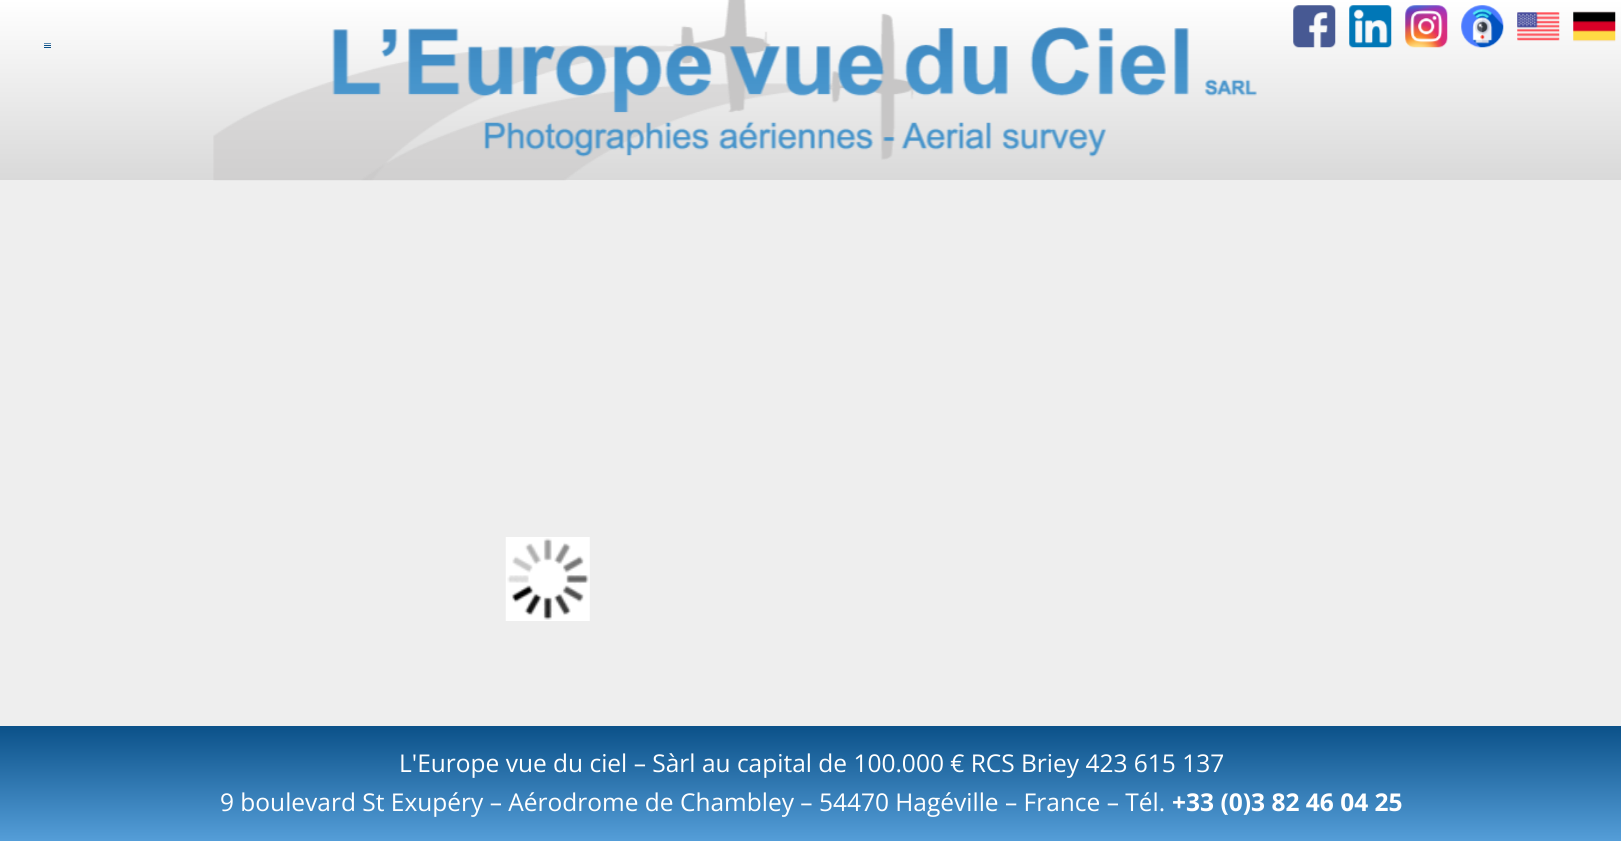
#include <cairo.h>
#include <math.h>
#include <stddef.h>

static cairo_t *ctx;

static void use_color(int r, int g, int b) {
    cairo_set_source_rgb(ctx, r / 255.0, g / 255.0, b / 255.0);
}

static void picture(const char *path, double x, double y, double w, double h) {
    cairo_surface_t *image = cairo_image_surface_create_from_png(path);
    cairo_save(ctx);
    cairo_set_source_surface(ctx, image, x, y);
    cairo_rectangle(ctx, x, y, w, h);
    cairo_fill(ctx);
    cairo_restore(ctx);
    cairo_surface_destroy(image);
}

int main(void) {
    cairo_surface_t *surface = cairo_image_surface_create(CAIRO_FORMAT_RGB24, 1621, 841);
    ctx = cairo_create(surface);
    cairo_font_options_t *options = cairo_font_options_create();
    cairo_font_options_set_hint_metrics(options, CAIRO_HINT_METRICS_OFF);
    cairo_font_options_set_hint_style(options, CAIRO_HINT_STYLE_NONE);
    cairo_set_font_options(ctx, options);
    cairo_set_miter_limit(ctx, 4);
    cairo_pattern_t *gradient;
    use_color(238, 238, 238);
    cairo_paint(ctx);
    gradient = cairo_pattern_create_linear(811, 0, 811, 180);
    cairo_pattern_add_color_stop_rgba(gradient, 0, 1, 1, 1, 1);
    cairo_pattern_add_color_stop_rgba(gradient, 1, 0.851, 0.851, 0.851, 1);
    cairo_set_source(ctx, gradient);
    cairo_pattern_destroy(gradient);
    cairo_rectangle(ctx, 0, 0, 1621, 180);
    cairo_fill(ctx);
    use_color(90, 136, 173);
    cairo_rectangle(ctx, 44, 43, 7, 1);
    cairo_fill(ctx);
    use_color(11, 81, 137);
    cairo_rectangle(ctx, 44, 45, 7, 1);
    cairo_fill(ctx);
    cairo_rectangle(ctx, 44, 47, 7, 1);
    cairo_fill(ctx);
    picture("img1.png", 213, 0, 1044, 181);
    picture("img2.png", 1293, 5, 43, 43);
    picture("img3.png", 1349, 5, 43, 43);
    picture("img4.png", 1405, 5, 43, 43);
    picture("img5.png", 1461, 5, 43, 43);
    picture("img6.png", 1517, 12, 43, 29);
    picture("img7.png", 1573, 11, 43, 31);
    picture("img8.png", 505, 537, 85, 84);
    gradient = cairo_pattern_create_linear(811, 726, 811, 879);
    cairo_pattern_add_color_stop_rgba(gradient, 0, 0.043, 0.318, 0.537, 1);
    cairo_pattern_add_color_stop_rgba(gradient, 1, 0.427, 0.718, 0.949, 1);
    cairo_set_source(ctx, gradient);
    cairo_pattern_destroy(gradient);
    cairo_rectangle(ctx, 0, 726, 1621, 115);
    cairo_fill(ctx);
    cairo_select_font_face(ctx, "Open Sans", CAIRO_FONT_SLANT_NORMAL, CAIRO_FONT_WEIGHT_NORMAL);
    cairo_set_font_size(ctx, 24.5);
    use_color(255, 255, 255);
    cairo_move_to(ctx, 399, 772);
    cairo_show_text(ctx, "L'Europe vue du ciel – Sàrl au capital de 100.000 € RCS Briey 423 615 137");
    cairo_move_to(ctx, 220, 811);
    cairo_show_text(ctx, "9 boulevard St Exupéry – Aérodrome de Chambley – 54470 Hagéville – France – Tél.");
    cairo_select_font_face(ctx, "Open Sans", CAIRO_FONT_SLANT_NORMAL, CAIRO_FONT_WEIGHT_BOLD);
    cairo_move_to(ctx, 1172, 811);
    cairo_show_text(ctx, "+33 (0)3 82 46 04 25");
    cairo_surface_write_to_png(surface, "result.png");
    cairo_font_options_destroy(options);
    cairo_destroy(ctx);
    cairo_surface_destroy(surface);
    return 0;
}
